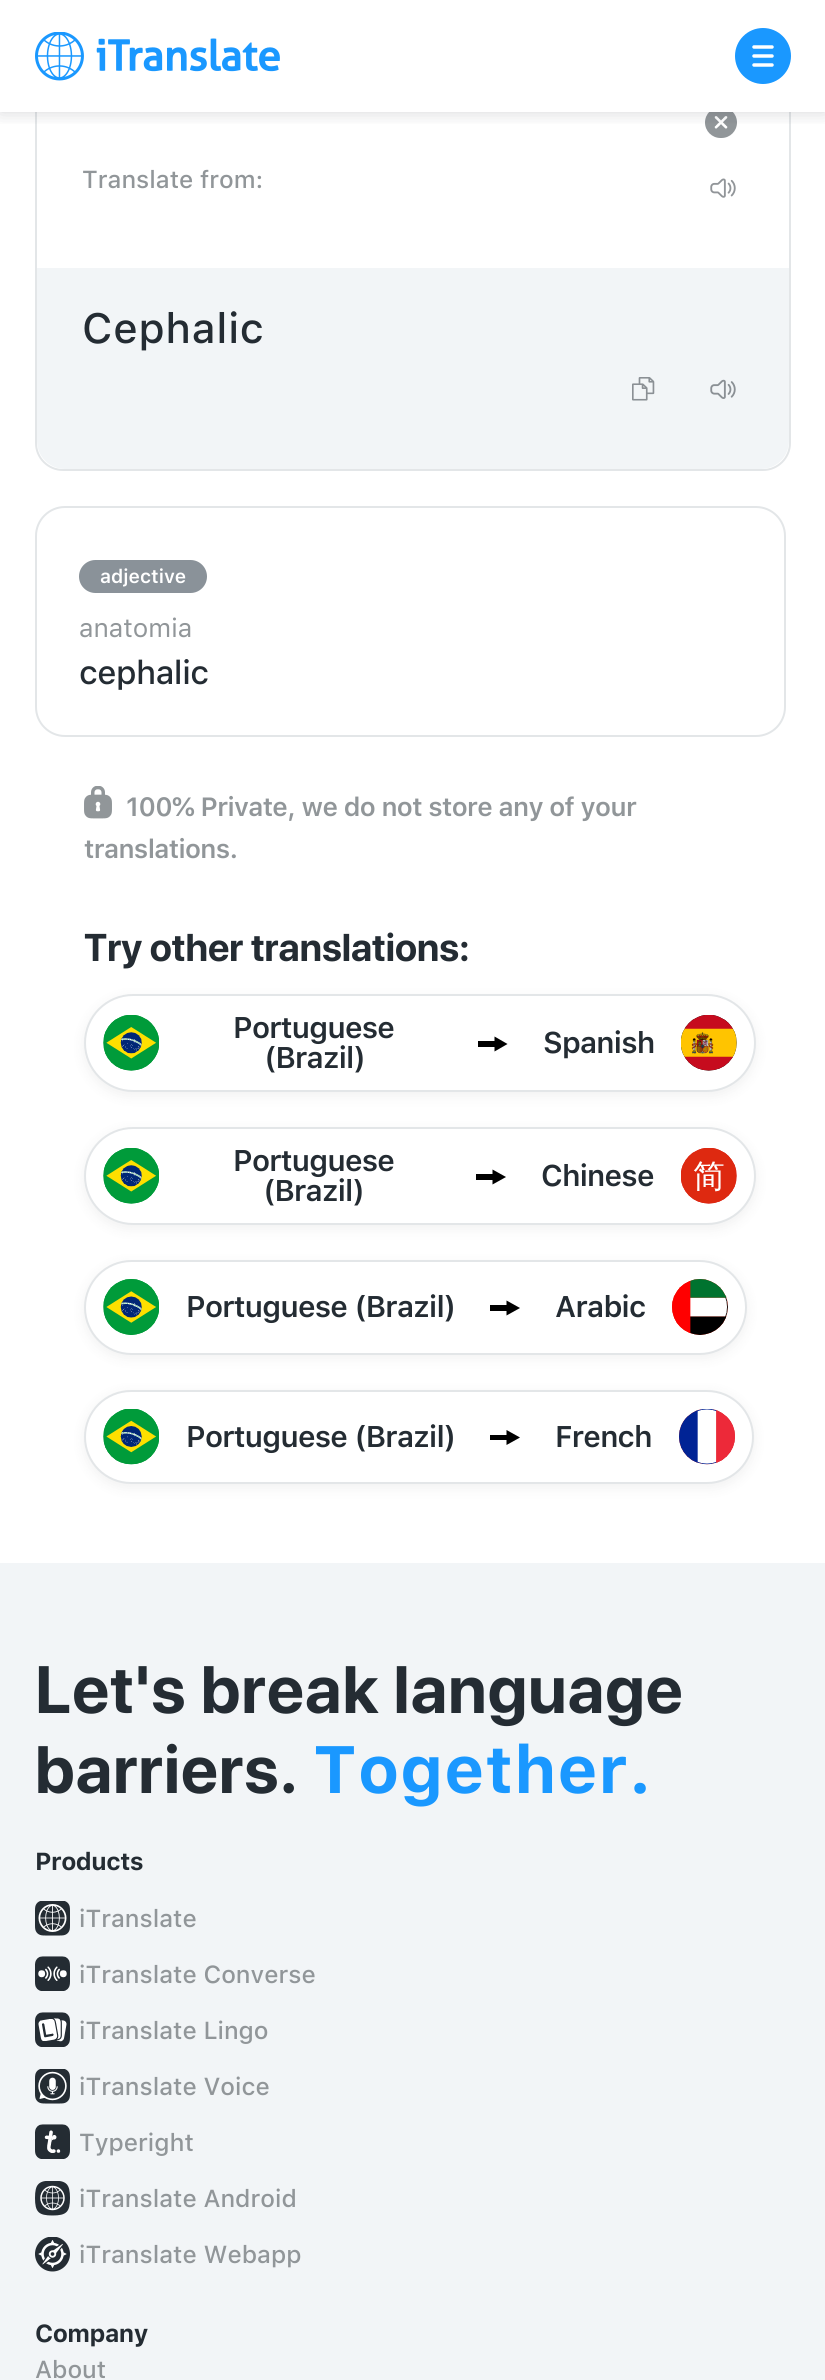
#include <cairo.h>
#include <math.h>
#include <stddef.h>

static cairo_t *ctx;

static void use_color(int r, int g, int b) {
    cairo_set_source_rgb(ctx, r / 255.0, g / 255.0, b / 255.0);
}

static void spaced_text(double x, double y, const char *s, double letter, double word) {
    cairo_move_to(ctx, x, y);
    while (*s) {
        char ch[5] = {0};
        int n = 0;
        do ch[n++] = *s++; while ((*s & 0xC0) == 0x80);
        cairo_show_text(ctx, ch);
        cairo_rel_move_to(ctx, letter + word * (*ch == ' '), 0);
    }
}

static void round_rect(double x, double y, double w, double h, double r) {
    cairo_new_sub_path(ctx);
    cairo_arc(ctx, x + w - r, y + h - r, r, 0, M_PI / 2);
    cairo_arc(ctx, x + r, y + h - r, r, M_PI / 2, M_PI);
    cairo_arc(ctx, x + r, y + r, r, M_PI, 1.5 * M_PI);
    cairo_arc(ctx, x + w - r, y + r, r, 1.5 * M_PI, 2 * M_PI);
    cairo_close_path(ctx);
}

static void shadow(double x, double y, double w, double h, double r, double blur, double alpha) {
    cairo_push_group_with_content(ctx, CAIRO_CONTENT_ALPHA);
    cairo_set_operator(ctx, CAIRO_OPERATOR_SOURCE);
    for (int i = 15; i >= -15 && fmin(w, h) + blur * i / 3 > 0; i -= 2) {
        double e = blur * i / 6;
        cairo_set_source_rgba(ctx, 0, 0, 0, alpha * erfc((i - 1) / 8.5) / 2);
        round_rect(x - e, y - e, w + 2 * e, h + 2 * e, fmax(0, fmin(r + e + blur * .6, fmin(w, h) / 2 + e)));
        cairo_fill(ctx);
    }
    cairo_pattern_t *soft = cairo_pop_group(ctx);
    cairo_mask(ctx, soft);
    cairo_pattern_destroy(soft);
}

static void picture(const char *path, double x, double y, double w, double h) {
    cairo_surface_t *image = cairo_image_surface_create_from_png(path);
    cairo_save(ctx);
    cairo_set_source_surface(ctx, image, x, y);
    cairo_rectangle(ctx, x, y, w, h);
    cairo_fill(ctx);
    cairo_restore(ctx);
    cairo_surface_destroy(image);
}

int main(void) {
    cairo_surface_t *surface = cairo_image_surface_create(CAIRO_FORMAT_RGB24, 825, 2380);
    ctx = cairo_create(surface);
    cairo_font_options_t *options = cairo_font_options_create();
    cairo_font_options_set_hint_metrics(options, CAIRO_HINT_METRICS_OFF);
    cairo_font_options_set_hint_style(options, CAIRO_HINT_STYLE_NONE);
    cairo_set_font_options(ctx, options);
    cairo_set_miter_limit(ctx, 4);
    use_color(255, 255, 255);
    cairo_paint(ctx);
    round_rect(36, -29, 754, 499, 27);
    use_color(227, 230, 232);
    cairo_stroke(ctx);
    use_color(145, 150, 153);
    round_rect(705, 107, 32, 31, 15.5);
    cairo_fill(ctx);
    use_color(255, 255, 255);
    cairo_rectangle(ctx, 35, 0, 756, 112);
    cairo_fill(ctx);
    picture("img2.png", 714, 116, 14, 13);
    cairo_save(ctx);
    cairo_rectangle(ctx, 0, 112, 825, 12);
    cairo_clip(ctx);
    use_color(36, 44, 51);
    shadow(0, 0, 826, 112, 0, 9, 0.2);
    cairo_restore(ctx);
    picture("img1.png", 35, 32, 245, 49);
    use_color(26, 152, 255);
    cairo_arc(ctx, 763, 56, 28, 0, 2 * M_PI);
    cairo_fill(ctx);
    cairo_new_path(ctx);
    cairo_move_to(ctx, 754, 56);
    cairo_line_to(ctx, 772, 56);
    cairo_move_to(ctx, 754, 47);
    cairo_line_to(ctx, 772, 47);
    cairo_move_to(ctx, 754, 65);
    cairo_line_to(ctx, 772, 65);
    use_color(255, 255, 255);
    cairo_set_line_width(ctx, 3.5);
    cairo_set_line_cap(ctx, CAIRO_LINE_CAP_ROUND);
    cairo_stroke(ctx);
    cairo_select_font_face(ctx, "SF Pro Text Medium", CAIRO_FONT_SLANT_NORMAL, CAIRO_FONT_WEIGHT_NORMAL);
    cairo_set_font_size(ctx, 24.5);
    use_color(145, 150, 153);
    cairo_move_to(ctx, 82, 188);
    cairo_show_text(ctx, "Translate from:");
    picture("img3.png", 710, 178, 26, 20);
    use_color(242, 245, 247);
    cairo_new_path(ctx);
    cairo_move_to(ctx, 37, 268);
    cairo_line_to(ctx, 789, 268);
    cairo_line_to(ctx, 789, 441);
    cairo_curve_to(ctx, 789, 456.5, 776.5, 469, 761, 469);
    cairo_line_to(ctx, 65, 469);
    cairo_curve_to(ctx, 49.5, 469, 37, 456.5, 37, 441);
    cairo_close_path(ctx);
    cairo_fill(ctx);
    cairo_set_font_size(ctx, 42);
    use_color(36, 44, 51);
    spaced_text(82, 343, "Cephalic", 0.75, 0);
    picture("img4.png", 632, 377, 23, 24);
    picture("img5.png", 710, 379, 26, 20);
    round_rect(36, 507, 749, 229, 29);
    use_color(227, 230, 232);
    cairo_set_line_width(ctx, 2);
    cairo_set_line_cap(ctx, CAIRO_LINE_CAP_BUTT);
    cairo_stroke(ctx);
    use_color(138, 146, 153);
    round_rect(79, 560, 128, 33, 16.5);
    cairo_fill(ctx);
    cairo_select_font_face(ctx, "SF Pro Text SemiBold", CAIRO_FONT_SLANT_NORMAL, CAIRO_FONT_WEIGHT_NORMAL);
    cairo_set_font_size(ctx, 19.25);
    use_color(255, 255, 255);
    cairo_move_to(ctx, 100, 583);
    cairo_show_text(ctx, "adjective");
    cairo_select_font_face(ctx, "SF Pro Text", CAIRO_FONT_SLANT_NORMAL, CAIRO_FONT_WEIGHT_NORMAL);
    cairo_set_font_size(ctx, 26.25);
    use_color(145, 150, 153);
    cairo_move_to(ctx, 79, 637);
    cairo_show_text(ctx, "anatomia");
    cairo_select_font_face(ctx, "SF Pro Text Medium", CAIRO_FONT_SLANT_NORMAL, CAIRO_FONT_WEIGHT_NORMAL);
    cairo_set_font_size(ctx, 33);
    use_color(36, 44, 51);
    spaced_text(79, 684, "cephalic", -0.5, 0);
    picture("img6.png", 84, 786, 28, 33);
    cairo_select_font_face(ctx, "SF Pro Text SemiBold", CAIRO_FONT_SLANT_NORMAL, CAIRO_FONT_WEIGHT_NORMAL);
    cairo_set_font_size(ctx, 26.25);
    use_color(145, 150, 153);
    spaced_text(126, 816, "100% Private, we do not store any of your", -0.65, 0);
    spaced_text(84, 858, "translations.", -0.65, 0);
    cairo_select_font_face(ctx, "SF Pro Display", CAIRO_FONT_SLANT_NORMAL, CAIRO_FONT_WEIGHT_BOLD);
    cairo_set_font_size(ctx, 38.5);
    use_color(36, 44, 51);
    cairo_move_to(ctx, 84, 961);
    cairo_show_text(ctx, "Try other translations:");
    use_color(0, 0, 0);
    shadow(84, 998, 672, 98, 49, 7, 0.06);
    use_color(255, 255, 255);
    round_rect(85, 995, 670, 96, 48);
    cairo_fill_preserve(ctx);
    use_color(227, 230, 232);
    cairo_stroke(ctx);
    picture("img7.png", 103, 1015, 56, 56);
    cairo_select_font_face(ctx, "SF Pro Text SemiBold", CAIRO_FONT_SLANT_NORMAL, CAIRO_FONT_WEIGHT_NORMAL);
    cairo_set_font_size(ctx, 29.75);
    use_color(36, 44, 51);
    spaced_text(233, 1038, "Portuguese", -0.75, 0);
    spaced_text(264, 1068, "(Brazil)", -0.75, 0);
    use_color(0, 0, 0);
    cairo_rectangle(ctx, 478, 1041, 18, 6);
    cairo_fill(ctx);
    cairo_new_path(ctx);
    cairo_move_to(ctx, 507.5, 1044);
    cairo_line_to(ctx, 494.5, 1051.5);
    cairo_line_to(ctx, 494.5, 1036.5);
    cairo_close_path(ctx);
    cairo_fill(ctx);
    use_color(36, 44, 51);
    spaced_text(543, 1053, "Spanish", -0.75, 0);
    picture("img8.png", 681, 1015, 56, 56);
    use_color(0, 0, 0);
    shadow(84, 1131, 672, 98, 49, 7, 0.06);
    use_color(255, 255, 255);
    round_rect(85, 1128, 670, 96, 48);
    cairo_fill_preserve(ctx);
    use_color(227, 230, 232);
    cairo_stroke(ctx);
    picture("img9.png", 103, 1148, 56, 56);
    use_color(36, 44, 51);
    spaced_text(233, 1171, "Portuguese", -0.75, 0);
    spaced_text(263, 1201, "(Brazil)", -0.75, 0);
    use_color(0, 0, 0);
    cairo_rectangle(ctx, 476, 1174, 18, 6);
    cairo_fill(ctx);
    cairo_new_path(ctx);
    cairo_move_to(ctx, 506, 1177);
    cairo_line_to(ctx, 492.5, 1184.5);
    cairo_line_to(ctx, 492.5, 1169.5);
    cairo_close_path(ctx);
    cairo_fill(ctx);
    use_color(36, 44, 51);
    spaced_text(541, 1186, "Chinese", -0.75, 0);
    picture("img10.png", 681, 1148, 56, 56);
    use_color(0, 0, 0);
    shadow(84, 1264, 663, 94, 47, 7, 0.06);
    use_color(255, 255, 255);
    round_rect(85, 1261, 661, 93, 46.5);
    cairo_fill_preserve(ctx);
    use_color(227, 230, 232);
    cairo_stroke(ctx);
    picture("img11.png", 103, 1279, 56, 56);
    use_color(36, 44, 51);
    spaced_text(186, 1317, "Portuguese (Brazil)", -0.75, 0);
    use_color(0, 0, 0);
    cairo_rectangle(ctx, 490, 1305, 18, 6);
    cairo_fill(ctx);
    cairo_new_path(ctx);
    cairo_move_to(ctx, 520, 1308);
    cairo_line_to(ctx, 506.5, 1315.5);
    cairo_line_to(ctx, 506.5, 1300.5);
    cairo_close_path(ctx);
    cairo_fill(ctx);
    use_color(36, 44, 51);
    spaced_text(555, 1317, "Arabic", -0.75, 0);
    picture("img12.png", 672, 1279, 56, 56);
    use_color(0, 0, 0);
    shadow(84, 1393, 670, 95, 47.5, 7, 0.06);
    use_color(255, 255, 255);
    round_rect(85, 1391, 668, 92, 46);
    cairo_fill_preserve(ctx);
    use_color(227, 230, 232);
    cairo_stroke(ctx);
    picture("img13.png", 103, 1409, 56, 56);
    use_color(36, 44, 51);
    spaced_text(186, 1447, "Portuguese (Brazil)", -0.75, 0);
    use_color(0, 0, 0);
    cairo_rectangle(ctx, 490, 1435, 18, 5);
    cairo_fill(ctx);
    cairo_new_path(ctx);
    cairo_move_to(ctx, 520, 1437.5);
    cairo_line_to(ctx, 506.5, 1445);
    cairo_line_to(ctx, 506.5, 1430);
    cairo_close_path(ctx);
    cairo_fill(ctx);
    use_color(36, 44, 51);
    spaced_text(555, 1447, "French", -0.75, 0);
    picture("img14.png", 679, 1409, 56, 56);
    use_color(242, 245, 247);
    cairo_rectangle(ctx, 0, 1563, 825, 817);
    cairo_fill(ctx);
    cairo_select_font_face(ctx, "SF Pro Display", CAIRO_FONT_SLANT_NORMAL, CAIRO_FONT_WEIGHT_BOLD);
    cairo_set_font_size(ctx, 66.5);
    use_color(36, 44, 51);
    spaced_text(35, 1713, "Let's break language", 1.1, 0);
    spaced_text(35, 1793, "barriers.", 1.1, 0);
    cairo_select_font_face(ctx, "SF Pro Text", CAIRO_FONT_SLANT_NORMAL, CAIRO_FONT_WEIGHT_BOLD);
    use_color(26, 152, 255);
    spaced_text(313, 1793, "Together.", 1.1, 0);
    cairo_set_font_size(ctx, 24.5);
    use_color(36, 44, 51);
    spaced_text(35, 1870, "Products", -0.5, 0);
    picture("img15.png", 35, 1901, 35, 35);
    cairo_select_font_face(ctx, "SF Pro Text Medium", CAIRO_FONT_SLANT_NORMAL, CAIRO_FONT_WEIGHT_NORMAL);
    use_color(145, 150, 153);
    cairo_move_to(ctx, 79, 1927);
    cairo_show_text(ctx, "iTranslate");
    picture("img16.png", 35, 1956, 35, 35);
    cairo_move_to(ctx, 79, 1983);
    cairo_show_text(ctx, "iTranslate Converse");
    picture("img17.png", 35, 2012, 35, 35);
    cairo_move_to(ctx, 79, 2039);
    cairo_show_text(ctx, "iTranslate Lingo");
    picture("img18.png", 35, 2069, 35, 35);
    cairo_move_to(ctx, 79, 2095);
    cairo_show_text(ctx, "iTranslate Voice");
    picture("img19.png", 35, 2124, 35, 35);
    cairo_move_to(ctx, 79, 2151);
    cairo_show_text(ctx, "Typeright");
    picture("img20.png", 35, 2181, 35, 35);
    cairo_move_to(ctx, 79, 2207);
    cairo_show_text(ctx, "iTranslate Android");
    picture("img21.png", 35, 2237, 35, 35);
    cairo_move_to(ctx, 79, 2263);
    cairo_show_text(ctx, "iTranslate Webapp");
    cairo_select_font_face(ctx, "SF Pro Text", CAIRO_FONT_SLANT_NORMAL, CAIRO_FONT_WEIGHT_BOLD);
    use_color(36, 44, 51);
    spaced_text(35, 2342, "Company", -0.5, 0);
    cairo_select_font_face(ctx, "SF Pro Text Medium", CAIRO_FONT_SLANT_NORMAL, CAIRO_FONT_WEIGHT_NORMAL);
    use_color(145, 150, 153);
    cairo_move_to(ctx, 35, 2378);
    cairo_show_text(ctx, "About");
    cairo_surface_write_to_png(surface, "result.png");
    cairo_font_options_destroy(options);
    cairo_destroy(ctx);
    cairo_surface_destroy(surface);
    return 0;
}
